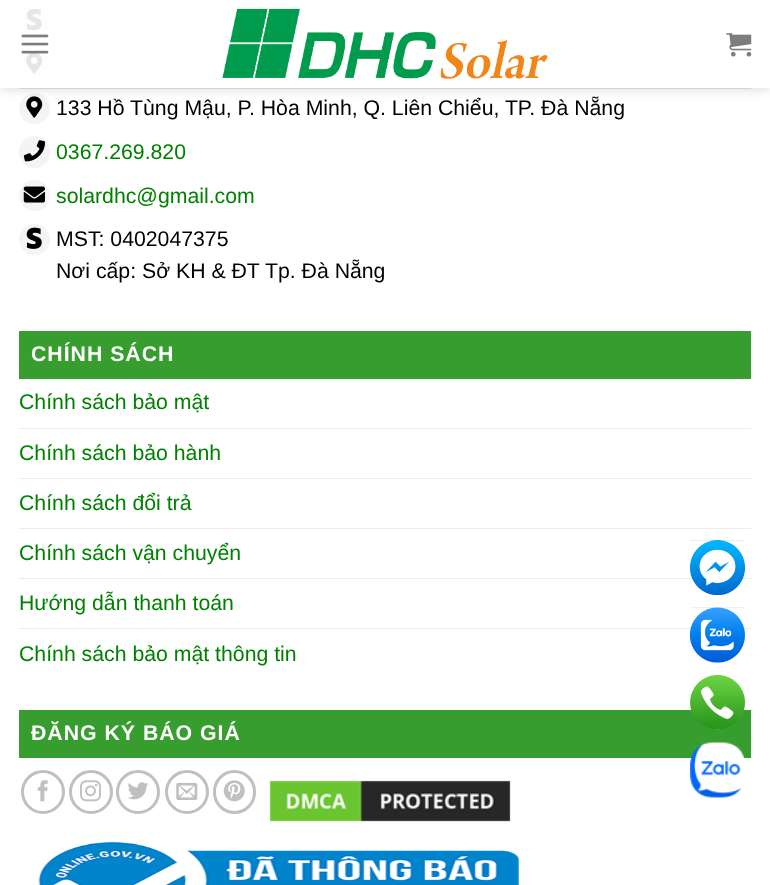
<!DOCTYPE html>
<meta charset="utf-8">
<style>body { margin: 0 } canvas { display: block }</style>
<canvas id="canvas" width="770" height="885"></canvas>
<img id="img1" src="images/4.png" hidden>
<img id="img2" src="images/5.png" hidden>
<img id="img3" src="images/6.png" hidden>
<img id="img4" src="images/1.png" hidden>
<img id="img5" src="images/2.png" hidden>
<img id="img6" src="images/3.png" hidden>
<img id="img7" src="images/7.png" hidden>
<img id="img8" src="images/8.png" hidden>
<img id="img9" src="images/9.png" hidden>
<img id="img10" src="images/10.png" hidden>
<img id="img11" src="images/11.png" hidden>
<img id="img12" src="images/12.png" hidden>
<img id="img13" src="images/13.png" hidden>
<img id="img14" src="images/14.png" hidden>
<img id="img15" src="images/15.png" hidden>
<img id="img16" src="images/16.png" hidden>
<img id="img17" src="images/17.png" hidden>
<img id="img18" src="images/18.png" hidden>
<img id="img19" src="images/19.png" hidden>
<img id="img20" src="images/20.png" hidden>
<script>
window.onload = function () {
    const canvas = document.getElementById('canvas');
    const context = canvas.getContext('2d');
    context.miterLimit = 4;
    context.fontKerning = 'normal';

    context.fillStyle = 'rgb(255, 255, 255)';
    context.fillRect(0, 0, 770, 885);
    context.fillStyle = 'rgb(244, 244, 244)';
    context.beginPath();
    context.arc(34.5, 20.5, 15.5, 0, 2 * Math.PI);
    context.fill();
    context.drawImage(document.getElementById('img1'), 26, 8, 16, 23);
    context.beginPath();
    context.arc(34.5, 64.5, 15.5, 0, 2 * Math.PI);
    context.fill();
    context.drawImage(document.getElementById('img2'), 26, 52, 17, 22);
    context.beginPath();
    context.arc(34.5, 108.5, 15.5, 0, 2 * Math.PI);
    context.fill();
    context.drawImage(document.getElementById('img3'), 26, 96, 17, 22);
    context.save();
    context.beginPath();
    context.moveTo(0, 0);
    context.lineTo(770, 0);
    context.lineTo(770, 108);
    context.lineTo(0, 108);
    context.closePath();
    context.moveTo(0, 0);
    context.lineTo(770, 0);
    context.lineTo(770, 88);
    context.lineTo(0, 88);
    context.closePath();
    context.clip('evenodd');
    context.fillStyle = 'rgba(0, 0, 0, 0.15)';
    context.filter = 'blur(6px)';
    context.beginPath();
    context.rect(1, 1, 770, 88);
    context.fill();
    context.filter = 'none';
    context.restore();
    context.fillStyle = 'rgba(255, 255, 255, 0.9)';
    context.fillRect(0, 5, 770, 83);
    context.drawImage(document.getElementById('img4'), 21, 34, 28, 20);
    context.drawImage(document.getElementById('img5'), 222, 8, 326, 71);
    context.drawImage(document.getElementById('img6'), 726, 33, 26, 24);
    context.fillStyle = 'rgb(211, 211, 211)';
    context.fillRect(19, 88, 732, 1);
    context.fillStyle = 'rgb(244, 244, 244)';
    context.beginPath();
    context.roundRect(19, 136, 31, 32, 15.5);
    context.fill();
    context.drawImage(document.getElementById('img7'), 23, 140, 23, 22);
    context.beginPath();
    context.arc(34.5, 195.5, 15.5, 0, 2 * Math.PI);
    context.fill();
    context.drawImage(document.getElementById('img8'), 23, 186, 22, 17);
    context.beginPath();
    context.arc(34.5, 239.5, 15.5, 0, 2 * Math.PI);
    context.fill();
    context.drawImage(document.getElementById('img9'), 26, 227, 16, 22);
    context.fillStyle = 'rgb(54, 157, 46)';
    context.fillRect(19, 331, 732, 48);
    context.fillStyle = 'rgb(236, 236, 236)';
    context.fillRect(19, 428, 732, 1);
    context.fillRect(19, 478, 732, 1);
    context.fillRect(19, 528, 732, 1);
    context.fillRect(19, 578, 732, 1);
    context.fillRect(19, 628, 732, 1);
    context.fillStyle = 'rgb(54, 157, 46)';
    context.fillRect(19, 710, 732, 48);
    context.beginPath();
    context.arc(43, 792, 20.5, 0, 2 * Math.PI);
    context.strokeStyle = 'rgb(192, 192, 192)';
    context.lineWidth = 3;
    context.stroke();
    context.drawImage(document.getElementById('img10'), 37, 780, 11, 22);
    context.beginPath();
    context.arc(91, 792, 20.5, 0, 2 * Math.PI);
    context.stroke();
    context.drawImage(document.getElementById('img11'), 80, 780, 21, 22);
    context.beginPath();
    context.arc(138, 792, 20.5, 0, 2 * Math.PI);
    context.stroke();
    context.drawImage(document.getElementById('img12'), 128, 782, 21, 18);
    context.beginPath();
    context.arc(187, 792, 20.5, 0, 2 * Math.PI);
    context.stroke();
    context.drawImage(document.getElementById('img13'), 176, 782, 22, 18);
    context.beginPath();
    context.roundRect(214.5, 771.5, 40, 41, 20);
    context.stroke();
    context.drawImage(document.getElementById('img14'), 223, 780, 22, 22);
    context.drawImage(document.getElementById('img15'), 269, 780, 242, 42);
    context.drawImage(document.getElementById('img16'), 38, 841, 481, 44);
    context.drawImage(document.getElementById('img17'), 690, 540, 55, 55);
    context.drawImage(document.getElementById('img18'), 690, 607, 55, 56);
    context.drawImage(document.getElementById('img19'), 690, 675, 55, 55);
    context.drawImage(document.getElementById('img20'), 690, 742, 55, 56);
    context.font = '21.25px Liberation Sans';
    context.fillStyle = 'rgb(0, 0, 0)';
    context.fillText('133 Hồ Tùng Mậu, P. Hòa Minh, Q. Liên Chiểu, TP. Đà Nẵng', 56, 115);
    context.fillStyle = 'rgb(0, 128, 0)';
    context.fillText('0367.269.820', 56, 159);
    context.fillText('solardhc@gmail.com', 56, 203);
    context.fillStyle = 'rgb(0, 0, 0)';
    context.fillText('MST: 0402047375', 56, 246);
    context.fillText('Nơi cấp: Sở KH & ĐT Tp. Đà Nẵng', 56, 278);
    context.letterSpacing = '1px';
    context.font = 'bold 21.25px Liberation Sans';
    context.fillStyle = 'rgb(255, 255, 255)';
    context.fillText('CHÍNH SÁCH', 31, 361);
    context.letterSpacing = '0px';
    context.font = '21.25px Liberation Sans';
    context.fillStyle = 'rgb(0, 128, 0)';
    context.fillText('Chính sách bảo mật', 19, 409);
    context.fillText('Chính sách bảo hành', 19, 460);
    context.fillText('Chính sách đổi trả', 19, 510);
    context.fillText('Chính sách vận chuyển', 19, 560);
    context.fillText('Hướng dẫn thanh toán', 19, 610);
    context.fillText('Chính sách bảo mật thông tin', 19, 661);
    context.letterSpacing = '1px';
    context.font = 'bold 21.25px Liberation Sans';
    context.fillStyle = 'rgb(255, 255, 255)';
    context.fillText('ĐĂNG KÝ BÁO GIÁ', 31, 740);
};
</script>
